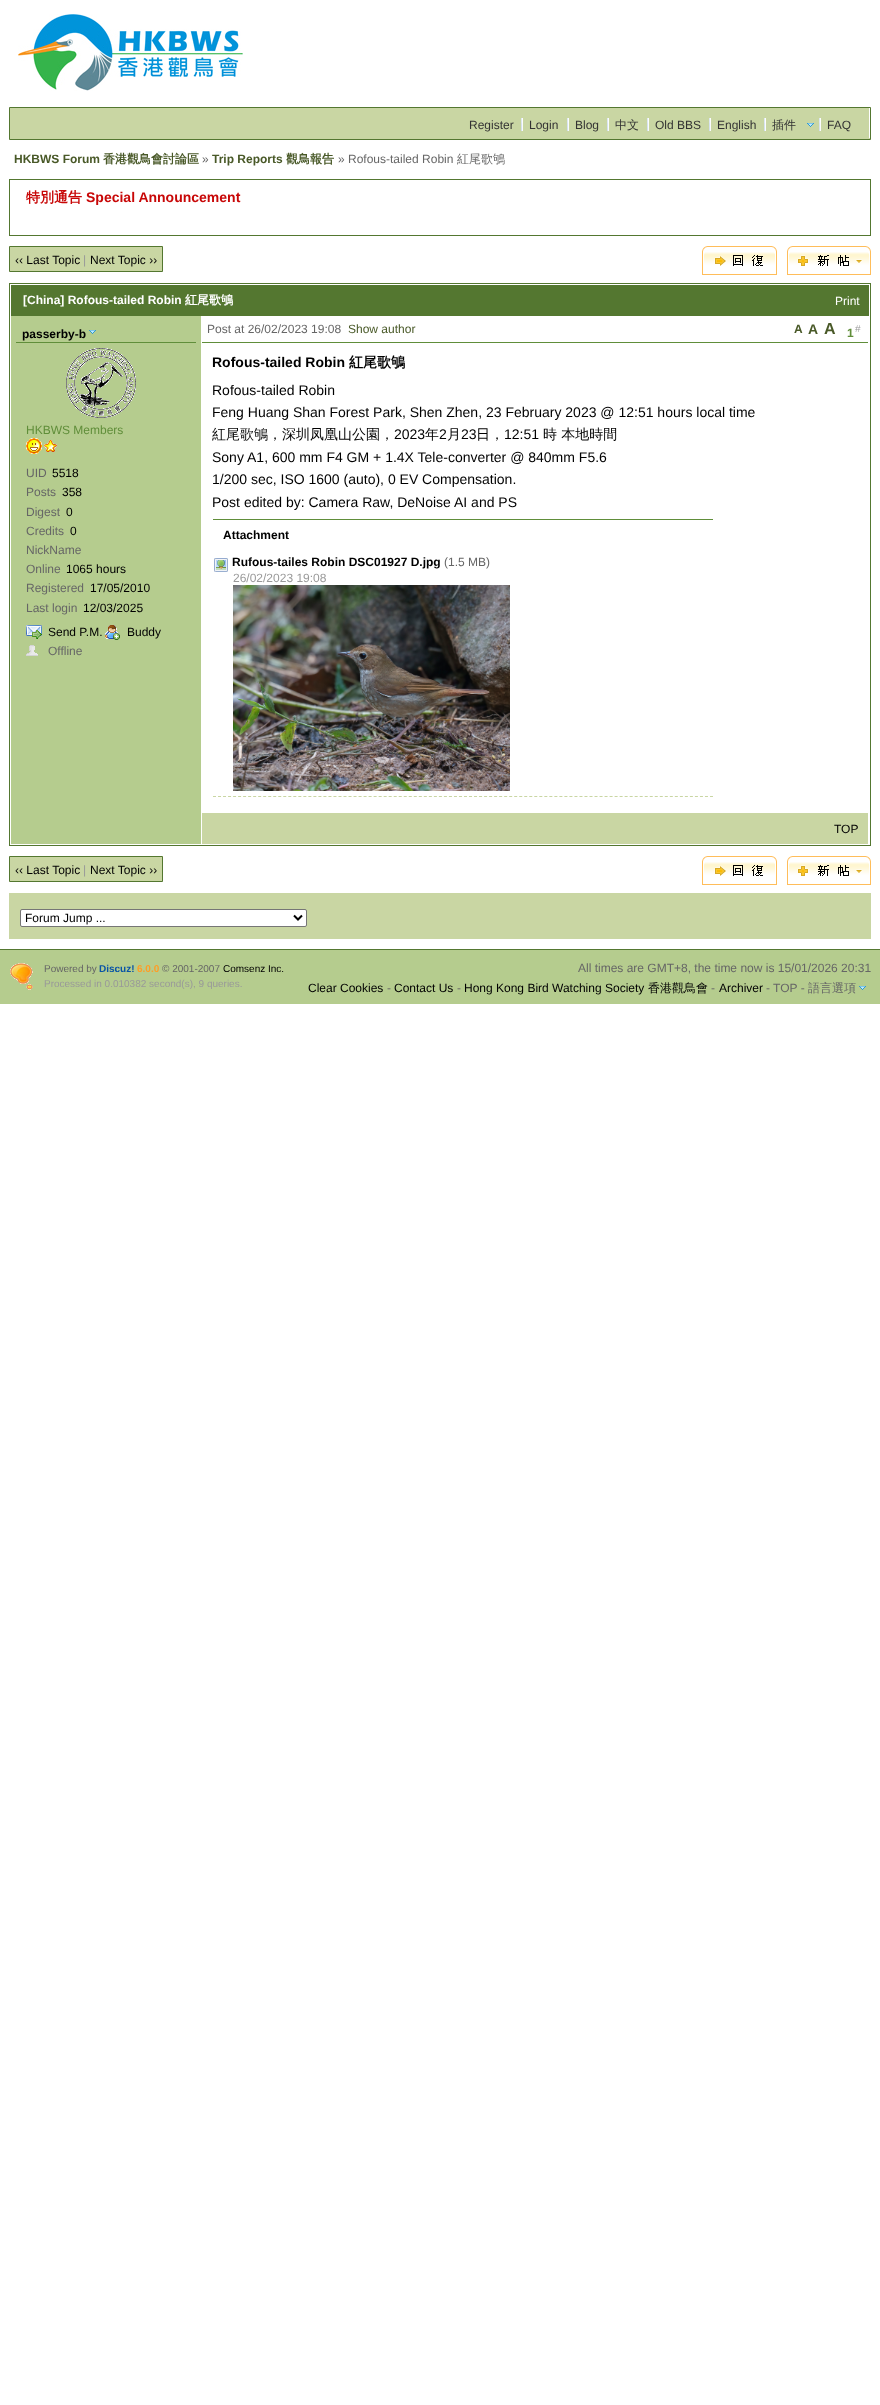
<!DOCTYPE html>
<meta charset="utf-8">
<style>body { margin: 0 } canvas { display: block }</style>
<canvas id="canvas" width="880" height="2405"></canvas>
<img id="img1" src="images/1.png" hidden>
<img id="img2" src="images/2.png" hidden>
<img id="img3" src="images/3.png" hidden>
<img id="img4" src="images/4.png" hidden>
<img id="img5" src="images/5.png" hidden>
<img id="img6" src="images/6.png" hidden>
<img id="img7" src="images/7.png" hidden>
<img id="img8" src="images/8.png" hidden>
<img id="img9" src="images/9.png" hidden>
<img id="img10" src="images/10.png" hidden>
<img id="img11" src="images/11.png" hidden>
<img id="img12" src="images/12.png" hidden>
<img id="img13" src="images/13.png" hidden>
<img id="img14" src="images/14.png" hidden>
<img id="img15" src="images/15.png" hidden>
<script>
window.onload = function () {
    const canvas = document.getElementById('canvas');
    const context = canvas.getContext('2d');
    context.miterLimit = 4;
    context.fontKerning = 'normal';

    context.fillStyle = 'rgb(255, 255, 255)';
    context.fillRect(0, 0, 880, 2405);
    context.drawImage(document.getElementById('img1'), 18, 14, 225, 77);
    context.fillStyle = 'rgb(201, 214, 163)';
    context.beginPath();
    context.rect(9.5, 107.5, 861, 32);
    context.fill();
    context.strokeStyle = 'rgb(84, 119, 48)';
    context.stroke();
    context.fillStyle = 'rgb(255, 255, 255)';
    context.fillRect(869, 108, 1, 30);
    context.drawImage(document.getElementById('img2'), 521, 118, 2, 13);
    context.drawImage(document.getElementById('img2'), 567, 118, 2, 13);
    context.drawImage(document.getElementById('img2'), 607, 118, 2, 13);
    context.drawImage(document.getElementById('img2'), 647, 118, 2, 13);
    context.drawImage(document.getElementById('img2'), 709, 118, 2, 13);
    context.drawImage(document.getElementById('img3'), 807, 123, 7, 4);
    context.drawImage(document.getElementById('img2'), 764, 118, 2, 13);
    context.drawImage(document.getElementById('img2'), 819, 118, 2, 13);
    context.strokeRect(9.5, 179.5, 861, 56);
    context.fillStyle = 'rgb(201, 214, 163)';
    context.beginPath();
    context.rect(9.5, 246.5, 153, 25);
    context.fill();
    context.stroke();
    context.drawImage(document.getElementById('img4'), 702, 246, 75, 29);
    context.drawImage(document.getElementById('img5'), 787, 246, 84, 29);
    context.strokeRect(9.5, 283.5, 861, 562);
    context.fillStyle = 'rgb(84, 119, 48)';
    context.fillRect(11, 285, 858, 31);
    context.fillStyle = 'rgb(181, 204, 142)';
    context.fillRect(11, 316, 190, 528);
    context.fillStyle = 'rgb(96, 142, 58)';
    context.fillRect(16, 342, 180, 1);
    context.drawImage(document.getElementById('img6'), 89, 330, 7, 4);
    context.drawImage(document.getElementById('img7'), 66, 348, 70, 70);
    context.drawImage(document.getElementById('img8'), 26, 438, 16, 16);
    context.drawImage(document.getElementById('img9'), 44, 440, 13, 12);
    context.drawImage(document.getElementById('img10'), 26, 625, 16, 14);
    context.drawImage(document.getElementById('img11'), 105, 625, 15, 15);
    context.drawImage(document.getElementById('img12'), 26, 645, 12, 11);
    context.fillRect(202, 342, 666, 1);
    context.fillRect(213, 519, 500, 1);
    context.beginPath();
    context.moveTo(213, 796.5);
    context.lineTo(713, 796.5);
    context.strokeStyle = 'rgb(201, 214, 163)';
    context.setLineDash([3, 2.02]);
    context.stroke();
    context.drawImage(document.getElementById('img13'), 214, 558, 14, 14);
    context.drawImage(document.getElementById('img14'), 233, 585, 277, 206);
    context.fillStyle = 'rgb(201, 214, 163)';
    context.fillRect(202, 813, 666, 31);
    context.beginPath();
    context.rect(9.5, 856.5, 153, 25);
    context.fill();
    context.strokeStyle = 'rgb(84, 119, 48)';
    context.setLineDash([]);
    context.stroke();
    context.drawImage(document.getElementById('img4'), 702, 856, 75, 29);
    context.drawImage(document.getElementById('img5'), 787, 856, 84, 29);
    context.fillRect(9, 893, 862, 46);
    context.fillStyle = 'rgb(255, 255, 255)';
    context.beginPath();
    context.roundRect(20.5, 909.5, 286, 17, 1.5);
    context.fill();
    context.strokeStyle = 'rgb(118, 118, 118)';
    context.stroke();
    context.beginPath();
    context.moveTo(294, 915.5);
    context.lineTo(298, 919.5);
    context.lineTo(302, 915.5);
    context.strokeStyle = 'rgb(0, 0, 0)';
    context.lineWidth = 2;
    context.stroke();
    context.fillStyle = 'rgb(181, 204, 142)';
    context.fillRect(0, 950, 880, 54);
    context.fillStyle = 'rgb(84, 119, 48)';
    context.fillRect(0, 949, 880, 1);
    context.drawImage(document.getElementById('img15'), 10, 963, 23, 27);
    context.drawImage(document.getElementById('img6'), 859, 986, 7, 4);
    context.font = '12px Liberation Sans';
    context.fillStyle = 'rgb(51, 51, 51)';
    context.fillText('Register', 469, 129);
    context.fillText('Login', 529, 129);
    context.fillText('Blog', 575, 129);
    context.font = '500 12px WenQuanYi Zen Hei';
    context.fillText('中文', 615, 129);
    context.font = '12px Liberation Sans';
    context.fillText('Old BBS', 655, 129);
    context.fillText('English', 717, 129);
    context.font = '500 12px WenQuanYi Zen Hei';
    context.fillText('插件', 772, 129);
    context.font = '12px Liberation Sans';
    context.fillText('FAQ', 827, 129);
    context.font = 'bold 12px Liberation Sans';
    context.fillStyle = 'rgb(73, 89, 40)';
    context.fillText('HKBWS Forum', 14, 163);
    context.font = 'bold 12px WenQuanYi Zen Hei';
    context.fillText('香港觀鳥會討論區', 103, 163);
    context.font = '12px Liberation Sans';
    context.fillStyle = 'rgb(102, 102, 102)';
    context.fillText('»', 202, 163);
    context.font = 'bold 12px Liberation Sans';
    context.fillStyle = 'rgb(73, 89, 40)';
    context.fillText('Trip Reports', 212, 163);
    context.font = 'bold 12px WenQuanYi Zen Hei';
    context.fillText('觀鳥報告', 286, 163);
    context.font = '12px Liberation Sans';
    context.fillStyle = 'rgb(102, 102, 102)';
    context.fillText('» Rofous-tailed Robin', 338, 163);
    context.font = '500 12px WenQuanYi Zen Hei';
    context.fillText('紅尾歌鴝', 457, 163);
    context.font = 'bold 14px WenQuanYi Zen Hei';
    context.fillStyle = 'rgb(200, 7, 7)';
    context.fillText('特別通告', 26, 202);
    context.font = 'bold 14px Liberation Sans';
    context.fillText('Special Announcement', 86, 202);
    context.font = '12px Liberation Sans';
    context.fillStyle = 'rgb(0, 0, 0)';
    context.fillText('‹‹ Last Topic', 15, 264);
    context.fillStyle = 'rgb(153, 153, 153)';
    context.fillText('|', 83, 264);
    context.fillStyle = 'rgb(0, 0, 0)';
    context.fillText('Next Topic ››', 90, 264);
    context.font = 'bold 12px Liberation Sans';
    context.fillStyle = 'rgb(255, 255, 255)';
    context.fillText('[China] Rofous-tailed Robin', 23, 304);
    context.font = 'bold 12px WenQuanYi Zen Hei';
    context.fillText('紅尾歌鴝', 185, 304);
    context.font = '12px Liberation Sans';
    context.fillText('Print', 835, 305);
    context.font = 'bold 12px Liberation Sans';
    context.fillStyle = 'rgb(0, 0, 0)';
    context.fillText('passerby-b', 22, 338);
    context.font = '12px Liberation Sans';
    context.fillStyle = 'rgb(96, 142, 58)';
    context.fillText('HKBWS Members', 26, 434);
    context.fillStyle = 'rgb(102, 102, 102)';
    context.fillText('UID', 26, 477);
    context.fillStyle = 'rgb(0, 0, 0)';
    context.fillText('5518', 52, 477);
    context.fillStyle = 'rgb(102, 102, 102)';
    context.fillText('Posts', 26, 496);
    context.fillStyle = 'rgb(0, 0, 0)';
    context.fillText('358', 62, 496);
    context.fillStyle = 'rgb(102, 102, 102)';
    context.fillText('Digest', 26, 516);
    context.fillStyle = 'rgb(0, 0, 0)';
    context.fillText('0', 66, 516);
    context.fillStyle = 'rgb(102, 102, 102)';
    context.fillText('Credits', 26, 535);
    context.fillStyle = 'rgb(0, 0, 0)';
    context.fillText('0', 70, 535);
    context.fillStyle = 'rgb(102, 102, 102)';
    context.fillText('NickName', 26, 554);
    context.fillText('Online', 26, 573);
    context.fillStyle = 'rgb(0, 0, 0)';
    context.fillText('1065 hours', 66, 573);
    context.fillStyle = 'rgb(102, 102, 102)';
    context.fillText('Registered', 26, 592);
    context.fillStyle = 'rgb(0, 0, 0)';
    context.fillText('17/05/2010', 90, 592);
    context.fillStyle = 'rgb(102, 102, 102)';
    context.fillText('Last login', 26, 612);
    context.fillStyle = 'rgb(0, 0, 0)';
    context.fillText('12/03/2025', 83, 612);
    context.fillText('Send P.M.', 48, 636);
    context.fillText('Buddy', 127, 636);
    context.fillStyle = 'rgb(102, 102, 102)';
    context.fillText('Offline', 48, 655);
    context.fillText('Post at 26/02/2023 19:08', 207, 333);
    context.fillStyle = 'rgb(73, 89, 40)';
    context.fillText('Show author', 348, 333);
    context.font = 'bold 12px Liberation Sans';
    context.fillText('A', 794, 333);
    context.font = 'bold 14px Liberation Sans';
    context.fillText('A', 808, 334);
    context.font = 'bold 16px Liberation Sans';
    context.fillText('A', 824, 334);
    context.font = 'bold 12px Liberation Sans';
    context.fillStyle = 'rgb(96, 142, 58)';
    context.fillText('1', 847, 337);
    context.font = '10px Liberation Sans';
    context.fillStyle = 'rgb(153, 153, 153)';
    context.fillText('#', 855, 332);
    context.font = 'bold 14px Liberation Sans';
    context.fillStyle = 'rgb(0, 0, 0)';
    context.fillText('Rofous-tailed Robin', 212, 367);
    context.font = 'bold 14px WenQuanYi Zen Hei';
    context.fillText('紅尾歌鴝', 349, 367);
    context.font = '14px Liberation Sans';
    context.fillText('Rofous-tailed Robin', 212, 395);
    context.fillText('Feng Huang Shan Forest Park, Shen Zhen, 23 February 2023 @ 12:51 hours local time', 212, 417);
    context.font = '500 14px WenQuanYi Zen Hei';
    context.fillText('紅尾歌鴝，深圳凤凰山公園，', 212, 439);
    context.font = '14px Liberation Sans';
    context.fillText('2023', 394, 439);
    context.font = '500 14px WenQuanYi Zen Hei';
    context.fillText('年', 425, 439);
    context.font = '14px Liberation Sans';
    context.fillText('2', 439, 439);
    context.font = '500 14px WenQuanYi Zen Hei';
    context.fillText('月', 447, 439);
    context.font = '14px Liberation Sans';
    context.fillText('23', 461, 439);
    context.font = '500 14px WenQuanYi Zen Hei';
    context.fillText('日，', 476, 439);
    context.font = '14px Liberation Sans';
    context.fillText('12:51', 504, 439);
    context.font = '500 14px WenQuanYi Zen Hei';
    context.fillText('時 本地時間', 543, 439);
    context.font = '14px Liberation Sans';
    context.fillText('Sony A1, 600 mm F4 GM + 1.4X Tele-converter @ 840mm F5.6', 212, 462);
    context.fillText('1/200 sec, ISO 1600 (auto), 0 EV Compensation.', 212, 484);
    context.fillText('Post edited by: Camera Raw, DeNoise AI and PS', 212, 507);
    context.font = 'bold 12px Liberation Sans';
    context.fillText('Attachment', 223, 539);
    context.fillText('Rufous-tailes Robin DSC01927 D.jpg', 232, 566);
    context.font = '12px Liberation Sans';
    context.fillStyle = 'rgb(102, 102, 102)';
    context.fillText('(1.5 MB)', 444, 566);
    context.fillStyle = 'rgb(153, 153, 153)';
    context.fillText('26/02/2023 19:08', 233, 582);
    context.fillStyle = 'rgb(0, 0, 0)';
    context.fillText('TOP', 834, 833);
    context.fillText('‹‹ Last Topic', 15, 874);
    context.fillStyle = 'rgb(153, 153, 153)';
    context.fillText('|', 83, 874);
    context.fillStyle = 'rgb(0, 0, 0)';
    context.fillText('Next Topic ››', 90, 874);
    context.fillText('Forum Jump ...', 25, 922);
    context.font = '10px Liberation Sans';
    context.fillStyle = 'rgb(102, 102, 102)';
    context.fillText('Powered by', 44, 972);
    context.font = 'bold 10px Liberation Sans';
    context.fillStyle = 'rgb(9, 84, 166)';
    context.fillText('Discuz!', 99, 972);
    context.fillStyle = 'rgb(255, 157, 37)';
    context.fillText('6.0.0', 137, 972);
    context.font = '10px Liberation Sans';
    context.fillStyle = 'rgb(102, 102, 102)';
    context.fillText('© 2001-2007', 162, 972);
    context.fillStyle = 'rgb(0, 0, 0)';
    context.fillText('Comsenz Inc.', 223, 972);
    context.font = '12px Liberation Sans';
    context.fillStyle = 'rgb(102, 102, 102)';
    context.fillText('All times are GMT+8, the time now is 15/01/2026 20:31', 578, 972);
    context.fillStyle = 'rgb(0, 0, 0)';
    context.fillText('Clear Cookies', 308, 992);
    context.fillStyle = 'rgb(102, 102, 102)';
    context.fillText('-', 387, 992);
    context.fillStyle = 'rgb(0, 0, 0)';
    context.fillText('Contact Us', 394, 992);
    context.fillStyle = 'rgb(102, 102, 102)';
    context.fillText('-', 457, 992);
    context.fillStyle = 'rgb(0, 0, 0)';
    context.fillText('Hong Kong Bird Watching Society', 464, 992);
    context.font = '500 12px WenQuanYi Zen Hei';
    context.fillText('香港觀鳥會', 648, 992);
    context.font = '12px Liberation Sans';
    context.fillStyle = 'rgb(102, 102, 102)';
    context.fillText('-', 711, 992);
    context.fillStyle = 'rgb(0, 0, 0)';
    context.fillText('Archiver', 719, 992);
    context.fillStyle = 'rgb(102, 102, 102)';
    context.fillText('- TOP -', 766, 992);
    context.font = '500 12px WenQuanYi Zen Hei';
    context.fillText('語言選項', 808, 992);
    context.font = '10px Liberation Sans';
    context.fillStyle = 'rgb(153, 153, 153)';
    context.fillText('Processed in 0.010382 second(s), 9 queries.', 44, 987);
};
</script>
